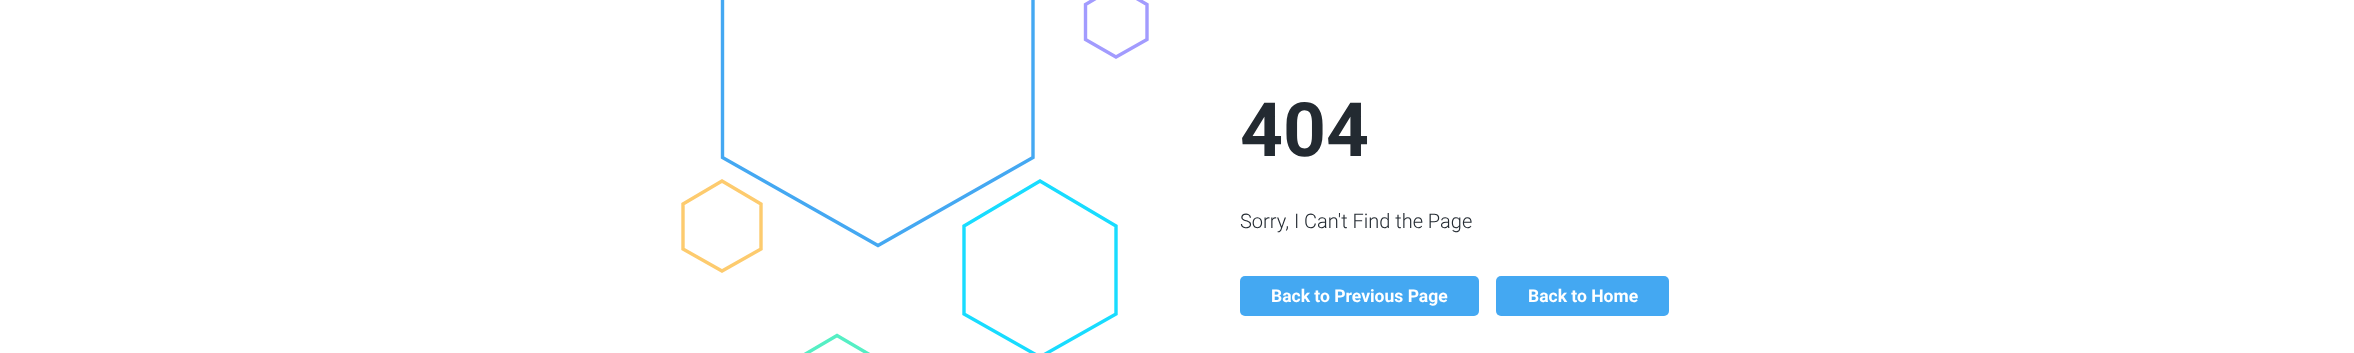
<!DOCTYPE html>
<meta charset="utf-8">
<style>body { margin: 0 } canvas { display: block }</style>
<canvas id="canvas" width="2354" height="353"></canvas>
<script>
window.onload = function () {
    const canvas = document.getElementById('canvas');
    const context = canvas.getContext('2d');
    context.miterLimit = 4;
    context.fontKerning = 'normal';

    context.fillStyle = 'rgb(255, 255, 255)';
    context.fillRect(0, 0, 2354, 353);
    context.beginPath();
    context.moveTo(878, -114);
    context.lineTo(1033, -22.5);
    context.lineTo(1033, 157.5);
    context.lineTo(878, 245.5);
    context.lineTo(722.5, 157.5);
    context.lineTo(722.5, -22.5);
    context.closePath();
    context.strokeStyle = 'rgb(68, 168, 242)';
    context.lineWidth = 3.4;
    context.stroke();
    context.beginPath();
    context.moveTo(722, 181);
    context.lineTo(761, 204);
    context.lineTo(761, 249);
    context.lineTo(722, 271);
    context.lineTo(683, 249);
    context.lineTo(683, 204);
    context.closePath();
    context.strokeStyle = 'rgb(253, 203, 110)';
    context.stroke();
    context.beginPath();
    context.moveTo(1116, -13.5);
    context.lineTo(1147, 4.5);
    context.lineTo(1147, 39.5);
    context.lineTo(1116, 57);
    context.lineTo(1085.5, 39.5);
    context.lineTo(1085.5, 4.5);
    context.closePath();
    context.strokeStyle = 'rgb(162, 155, 254)';
    context.stroke();
    context.beginPath();
    context.moveTo(1040, 181);
    context.lineTo(1116, 226);
    context.lineTo(1116, 314);
    context.lineTo(1040, 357);
    context.lineTo(964, 314);
    context.lineTo(964, 226);
    context.closePath();
    context.strokeStyle = 'rgb(24, 220, 255)';
    context.stroke();
    context.beginPath();
    context.moveTo(837, 335.5);
    context.lineTo(895, 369.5);
    context.lineTo(895, 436.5);
    context.lineTo(837, 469.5);
    context.lineTo(779, 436.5);
    context.lineTo(779, 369.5);
    context.closePath();
    context.strokeStyle = 'rgb(85, 239, 196)';
    context.stroke();
    context.fillStyle = 'rgb(68, 168, 242)';
    context.beginPath();
    context.roundRect(1240, 276, 239, 40, 5);
    context.fill();
    context.beginPath();
    context.roundRect(1496, 276, 173, 40, 5);
    context.fill();
    context.font = 'bold 75px Roboto';
    context.fillStyle = 'rgb(35, 42, 49)';
    context.fillText('404', 1240, 156);
    context.font = '300 20px Roboto';
    context.fillText('Sorry, I Can\'t Find the Page', 1240, 228);
    context.font = 'bold 17.5px Roboto';
    context.fillStyle = 'rgb(255, 255, 255)';
    context.fillText('Back to Previous Page', 1271, 302);
    context.fillText('Back to Home', 1528, 302);
};
</script>
